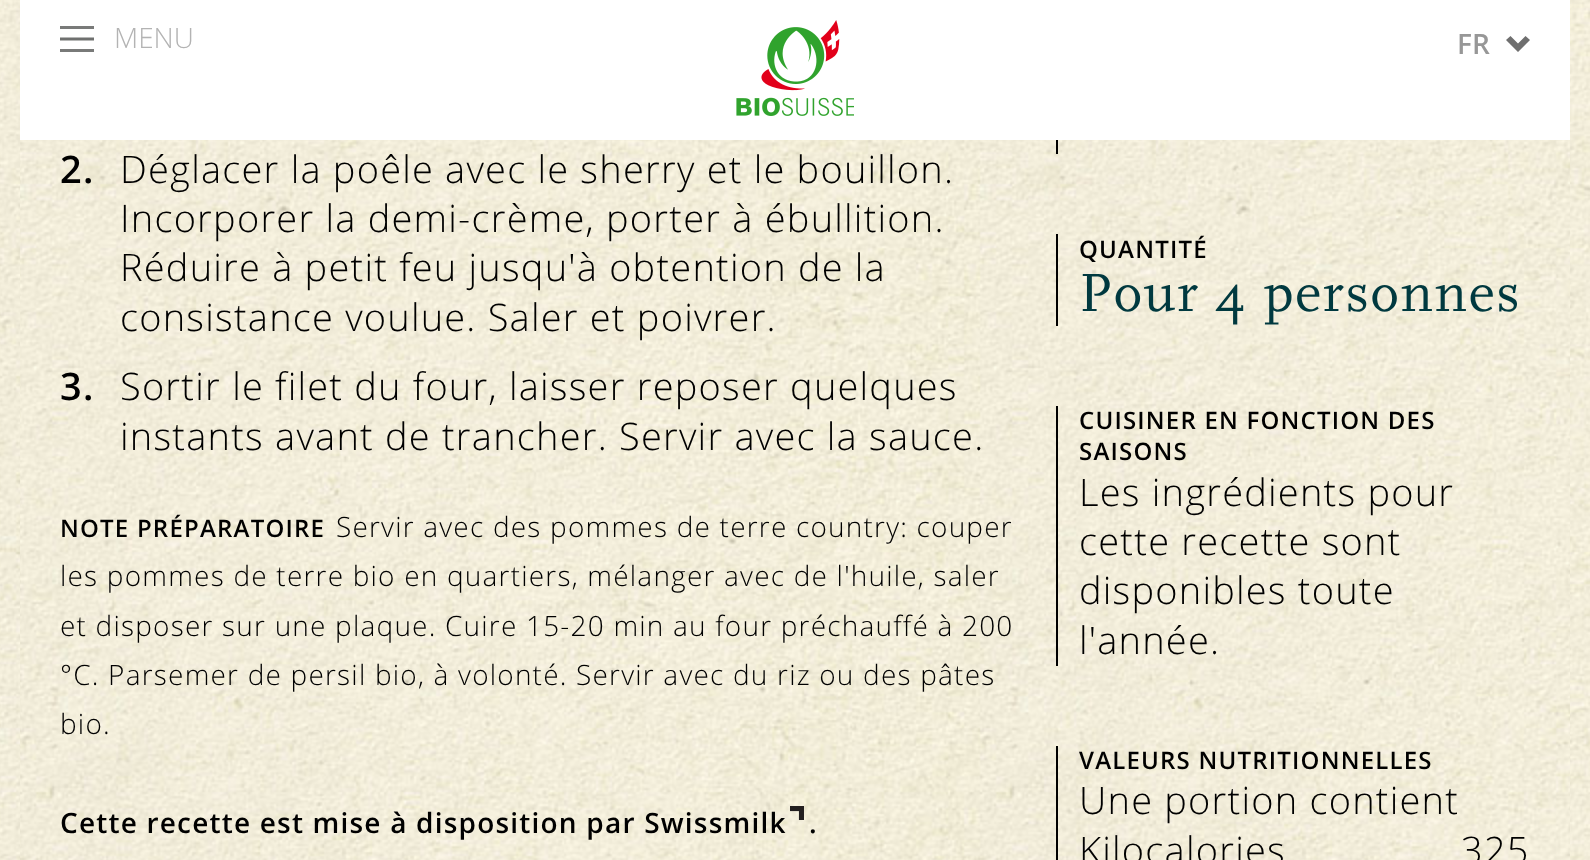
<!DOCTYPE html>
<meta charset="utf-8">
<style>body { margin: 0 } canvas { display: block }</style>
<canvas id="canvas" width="1590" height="860"></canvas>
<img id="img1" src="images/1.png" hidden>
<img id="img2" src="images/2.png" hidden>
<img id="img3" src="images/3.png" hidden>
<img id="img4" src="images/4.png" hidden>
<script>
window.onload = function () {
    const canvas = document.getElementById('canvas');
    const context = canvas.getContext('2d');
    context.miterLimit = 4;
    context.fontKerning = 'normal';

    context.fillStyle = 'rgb(255, 255, 255)';
    context.fillRect(0, 0, 1590, 860);
    context.drawImage(document.getElementById('img1'), 0, 0, 1590, 860);
    context.fillRect(20, 0, 1550, 140);
    context.drawImage(document.getElementById('img2'), 736, 20, 118, 96);
    context.fillStyle = 'rgb(121, 122, 121)';
    context.fillRect(60, 26, 34, 3);
    context.beginPath();
    context.moveTo(60, 39);
    context.lineTo(94, 39);
    context.strokeStyle = 'rgb(111, 112, 111)';
    context.lineWidth = 2.8;
    context.stroke();
    context.fillRect(60, 49, 34, 3);
    context.fillStyle = 'rgb(111, 111, 111)';
    context.beginPath();
    context.moveTo(1525.5, 36);
    context.lineTo(1518, 43.5);
    context.lineTo(1510.5, 36);
    context.lineTo(1506, 40);
    context.lineTo(1518, 52);
    context.lineTo(1530, 40);
    context.closePath();
    context.fill();
    context.drawImage(document.getElementById('img3'), 20, 140, 1550, 720);
    context.drawImage(document.getElementById('img4'), 790, 806, 14, 14);
    context.fillStyle = 'rgb(0, 0, 0)';
    context.fillRect(1056, 140, 2, 14);
    context.fillRect(1056, 234, 2, 92);
    context.fillRect(1056, 406, 2, 260);
    context.fillRect(1056, 746, 2, 114);
    context.font = '300 28px Open Sans';
    context.fillStyle = 'rgb(179, 179, 179)';
    context.fillText('MENU', 114, 48);
    context.font = '600 28px Open Sans';
    context.fillStyle = 'rgb(151, 151, 151)';
    context.fillText('FR', 1457, 54);
    context.letterSpacing = '1.2px';
    context.font = '600 38px Open Sans';
    context.fillStyle = 'rgb(0, 0, 0)';
    context.fillText('2.', 60, 183);
    context.font = '300 38px Open Sans';
    context.fillText('Déglacer la poêle avec le sherry et le bouillon.', 120, 183);
    context.fillText('Incorporer la demi-crème, porter à ébullition.', 120, 232);
    context.fillText('Réduire à petit feu jusqu\'à obtention de la', 120, 281);
    context.fillText('consistance voulue. Saler et poivrer.', 120, 331);
    context.font = '600 38px Open Sans';
    context.fillText('3.', 60, 400);
    context.font = '300 38px Open Sans';
    context.fillText('Sortir le filet du four, laisser reposer quelques', 120, 400);
    context.fillText('instants avant de trancher. Servir avec la sauce.', 120, 450);
    context.font = '600 24px Open Sans';
    context.fillText('NOTE PRÉPARATOIRE', 60, 537);
    context.font = '300 28px Open Sans';
    context.fillText('Servir avec des pommes de terre country: couper', 336, 537);
    context.fillText('les pommes de terre bio en quartiers, mélanger avec de l\'huile, saler', 60, 586);
    context.fillText('et disposer sur une plaque. Cuire 15-20 min au four préchauffé à 200', 60, 636);
    context.fillText('°C. Parsemer de persil bio, à volonté. Servir avec du riz ou des pâtes', 60, 685);
    context.fillText('bio.', 60, 734);
    context.font = '600 28px Open Sans';
    context.fillText('Cette recette est mise à disposition par Swissmilk', 60, 833);
    context.fillText('.', 809, 833);
    context.font = '600 24px Open Sans';
    context.fillText('QUANTITÉ', 1079, 258);
    context.letterSpacing = '1.6px';
    context.font = '56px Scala';
    context.fillStyle = 'rgb(0, 57, 63)';
    context.fillText('Pour 4 personnes', 1079, 311);
    context.letterSpacing = '1.2px';
    context.font = '600 24px Open Sans';
    context.fillStyle = 'rgb(0, 0, 0)';
    context.fillText('CUISINER EN FONCTION DES', 1079, 429);
    context.fillText('SAISONS', 1079, 460);
    context.font = '300 38px Open Sans';
    context.fillText('Les ingrédients pour', 1079, 506);
    context.fillText('cette recette sont', 1079, 555);
    context.fillText('disponibles toute', 1079, 604);
    context.fillText('l\'année.', 1079, 654);
    context.font = '600 24px Open Sans';
    context.fillText('VALEURS NUTRITIONNELLES', 1079, 769);
    context.font = '300 38px Open Sans';
    context.fillText('Une portion contient', 1079, 814);
    context.fillText('Kilocalories', 1079, 864);
    context.fillText('325', 1461, 864);
};
</script>
